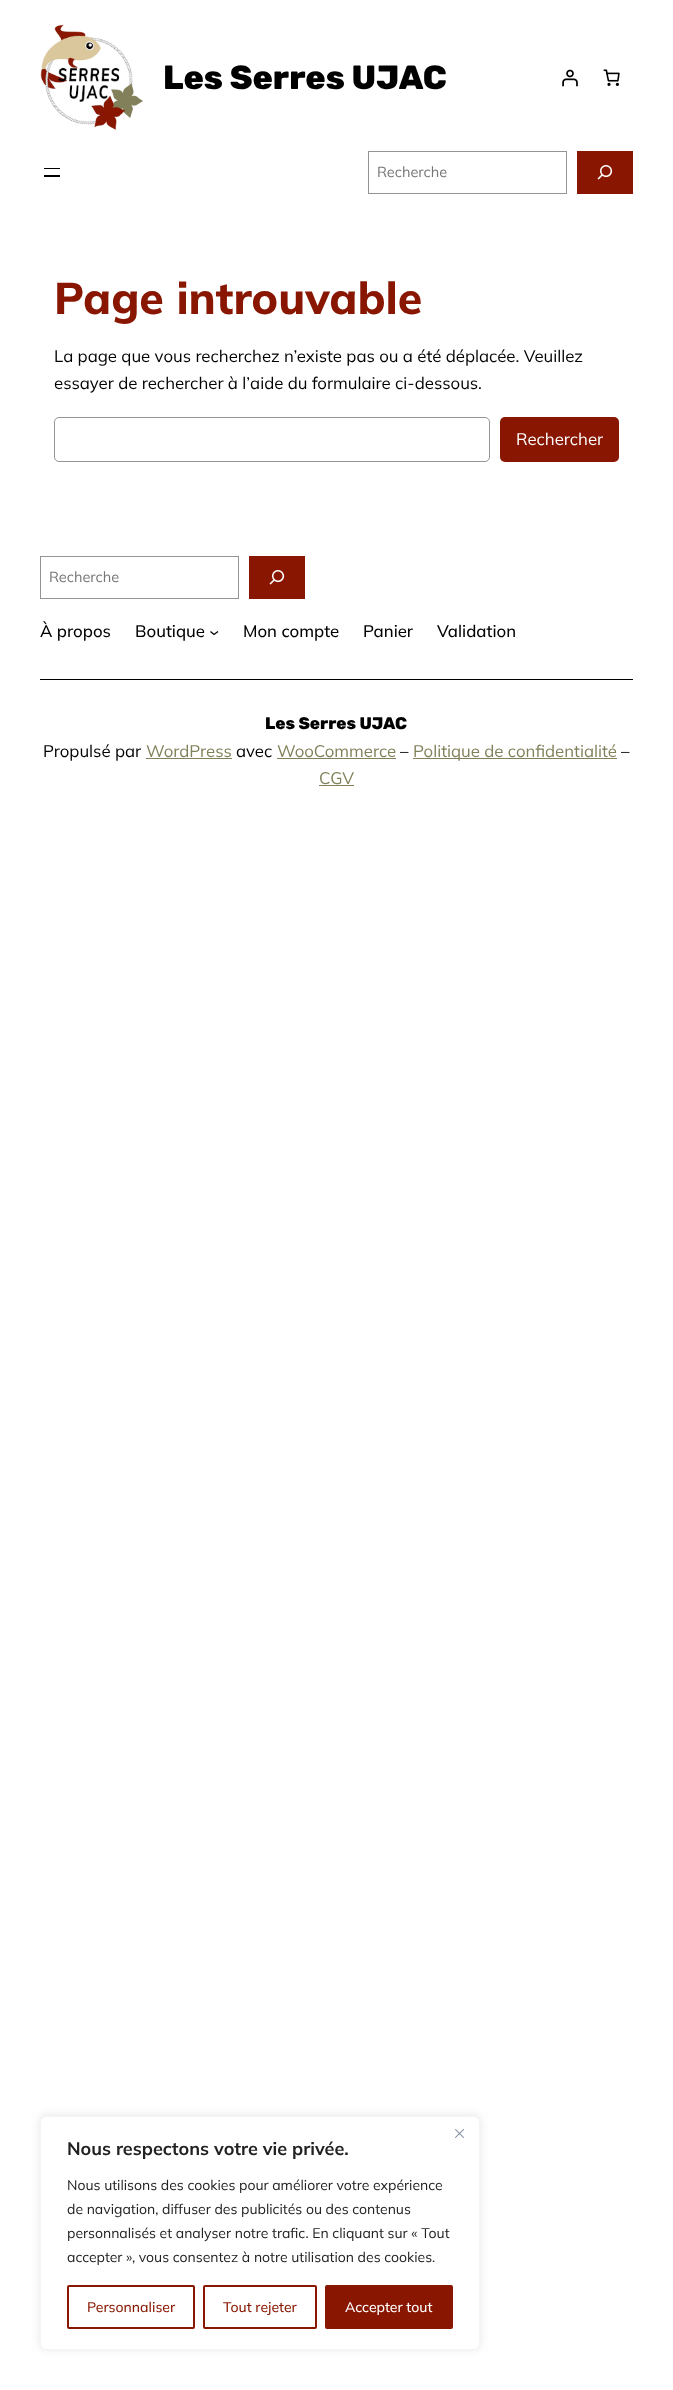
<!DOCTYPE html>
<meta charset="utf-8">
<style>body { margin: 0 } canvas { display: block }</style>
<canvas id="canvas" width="673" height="2390"></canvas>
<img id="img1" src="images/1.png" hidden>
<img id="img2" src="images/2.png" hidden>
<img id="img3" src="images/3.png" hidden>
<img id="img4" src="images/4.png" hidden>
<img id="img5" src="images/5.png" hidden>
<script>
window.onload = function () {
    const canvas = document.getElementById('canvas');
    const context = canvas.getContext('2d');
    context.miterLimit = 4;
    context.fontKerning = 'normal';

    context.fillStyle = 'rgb(255, 255, 255)';
    context.fillRect(0, 0, 673, 2390);
    context.drawImage(document.getElementById('img1'), 40, 24, 103, 106);
    context.drawImage(document.getElementById('img2'), 562, 69, 16, 18);
    context.drawImage(document.getElementById('img3'), 603, 69, 17, 17);
    context.fillStyle = 'rgb(0, 0, 0)';
    context.fillRect(44, 168, 16, 1);
    context.fillRect(44, 175, 16, 2);
    context.strokeStyle = 'rgb(148, 148, 148)';
    context.strokeRect(368.5, 151.5, 198, 42);
    context.fillStyle = 'rgb(136, 22, 1)';
    context.fillRect(577, 151, 56, 43);
    context.drawImage(document.getElementById('img4'), 597, 165, 16, 15);
    context.beginPath();
    context.roundRect(54.5, 417.5, 435, 44, 4.5);
    context.stroke();
    context.beginPath();
    context.roundRect(500, 417, 119, 45, 5);
    context.fill();
    context.strokeRect(40.5, 556.5, 198, 42);
    context.fillRect(249, 556, 56, 43);
    context.drawImage(document.getElementById('img4'), 269, 570, 16, 15);
    context.beginPath();
    context.moveTo(210.5, 631.5);
    context.lineTo(214, 634.5);
    context.lineTo(218, 631.5);
    context.strokeStyle = 'rgb(0, 0, 0)';
    context.lineWidth = 1.3;
    context.stroke();
    context.fillStyle = 'rgb(0, 0, 0)';
    context.fillRect(40, 679, 593, 1);
    context.fillStyle = 'rgb(129, 128, 90)';
    context.fillRect(146, 758, 86, 1);
    context.fillRect(277, 758, 119, 1);
    context.fillRect(413, 758, 204, 1);
    context.fillRect(319, 785, 35, 1);
    context.fillStyle = 'rgba(172, 171, 171, 0.3)';
    context.filter = 'blur(5px)';
    context.beginPath();
    context.roundRect(40, 2115, 440, 234, 6);
    context.fill();
    context.filter = 'none';
    context.fillStyle = 'rgb(255, 255, 255)';
    context.beginPath();
    context.roundRect(40.5, 2116.5, 439, 233, 5.5);
    context.fill();
    context.strokeStyle = 'rgb(244, 244, 244)';
    context.lineWidth = 1;
    context.stroke();
    context.drawImage(document.getElementById('img5'), 455, 2129, 9, 9);
    context.beginPath();
    context.roundRect(68, 2286, 126, 42, 1);
    context.strokeStyle = 'rgb(136, 22, 1)';
    context.lineWidth = 2;
    context.stroke();
    context.beginPath();
    context.roundRect(204, 2286, 112, 42, 1);
    context.stroke();
    context.fillStyle = 'rgb(136, 22, 1)';
    context.beginPath();
    context.roundRect(326, 2286, 126, 42, 1);
    context.fill();
    context.stroke();
    context.font = '800 33.5px Rubik';
    context.fillStyle = 'rgb(0, 0, 0)';
    context.fillText('Les Serres UJAC', 163, 89);
    context.font = '14.5px Mulish';
    context.fillStyle = 'rgb(117, 117, 117)';
    context.fillText('Recherche', 377, 177);
    context.font = '800 44.5px Mulish';
    context.fillStyle = 'rgb(136, 22, 1)';
    context.fillText('Page introuvable', 54, 314);
    context.font = '16.8px Mulish';
    context.fillStyle = 'rgb(0, 0, 0)';
    context.fillText('La page que vous recherchez n’existe pas ou a été déplacée. Veuillez', 54, 362);
    context.fillText('essayer de rechercher à l’aide du formulaire ci-dessous.', 54, 389);
    context.fillStyle = 'rgb(255, 255, 255)';
    context.fillText('Rechercher', 516, 445);
    context.font = '14.5px Mulish';
    context.fillStyle = 'rgb(117, 117, 117)';
    context.fillText('Recherche', 49, 582);
    context.font = '500 16.8px Mulish';
    context.fillStyle = 'rgb(0, 0, 0)';
    context.fillText('À propos', 40, 637);
    context.fillText('Boutique', 135, 637);
    context.fillText('Mon compte', 243, 637);
    context.fillText('Panier', 363, 637);
    context.fillText('Validation', 437, 637);
    context.font = '800 16.8px Rubik';
    context.fillText('Les Serres UJAC', 265, 729);
    context.font = '16.8px Mulish';
    context.fillText('Propulsé par', 43, 757);
    context.fillStyle = 'rgb(129, 128, 90)';
    context.fillText('WordPress', 146, 757);
    context.fillStyle = 'rgb(0, 0, 0)';
    context.fillText('avec', 236, 757);
    context.fillStyle = 'rgb(129, 128, 90)';
    context.fillText('WooCommerce', 277, 757);
    context.fillStyle = 'rgb(0, 0, 0)';
    context.fillText('–', 400, 757);
    context.fillStyle = 'rgb(129, 128, 90)';
    context.fillText('Politique de confidentialité', 413, 757);
    context.fillStyle = 'rgb(0, 0, 0)';
    context.fillText('–', 621, 757);
    context.fillStyle = 'rgb(129, 128, 90)';
    context.fillText('CGV', 319, 784);
    context.font = 'bold 18px Mulish';
    context.fillStyle = 'rgb(33, 33, 33)';
    context.fillText('Nous respectons votre vie privée.', 67, 2155);
    context.font = '14px Mulish';
    context.fillText('Nous utilisons des cookies pour améliorer votre expérience', 67, 2190);
    context.fillText('de navigation, diffuser des publicités ou des contenus', 67, 2214);
    context.fillText('personnalisés et analyser notre trafic. En cliquant sur « Tout', 67, 2238);
    context.fillText('accepter », vous consentez à notre utilisation des cookies.', 67, 2262);
    context.font = '500 14px Mulish';
    context.fillStyle = 'rgb(136, 22, 1)';
    context.fillText('Personnaliser', 87, 2312);
    context.fillText('Tout rejeter', 223, 2312);
    context.fillStyle = 'rgb(255, 255, 255)';
    context.fillText('Accepter tout', 345, 2312);
};
</script>
